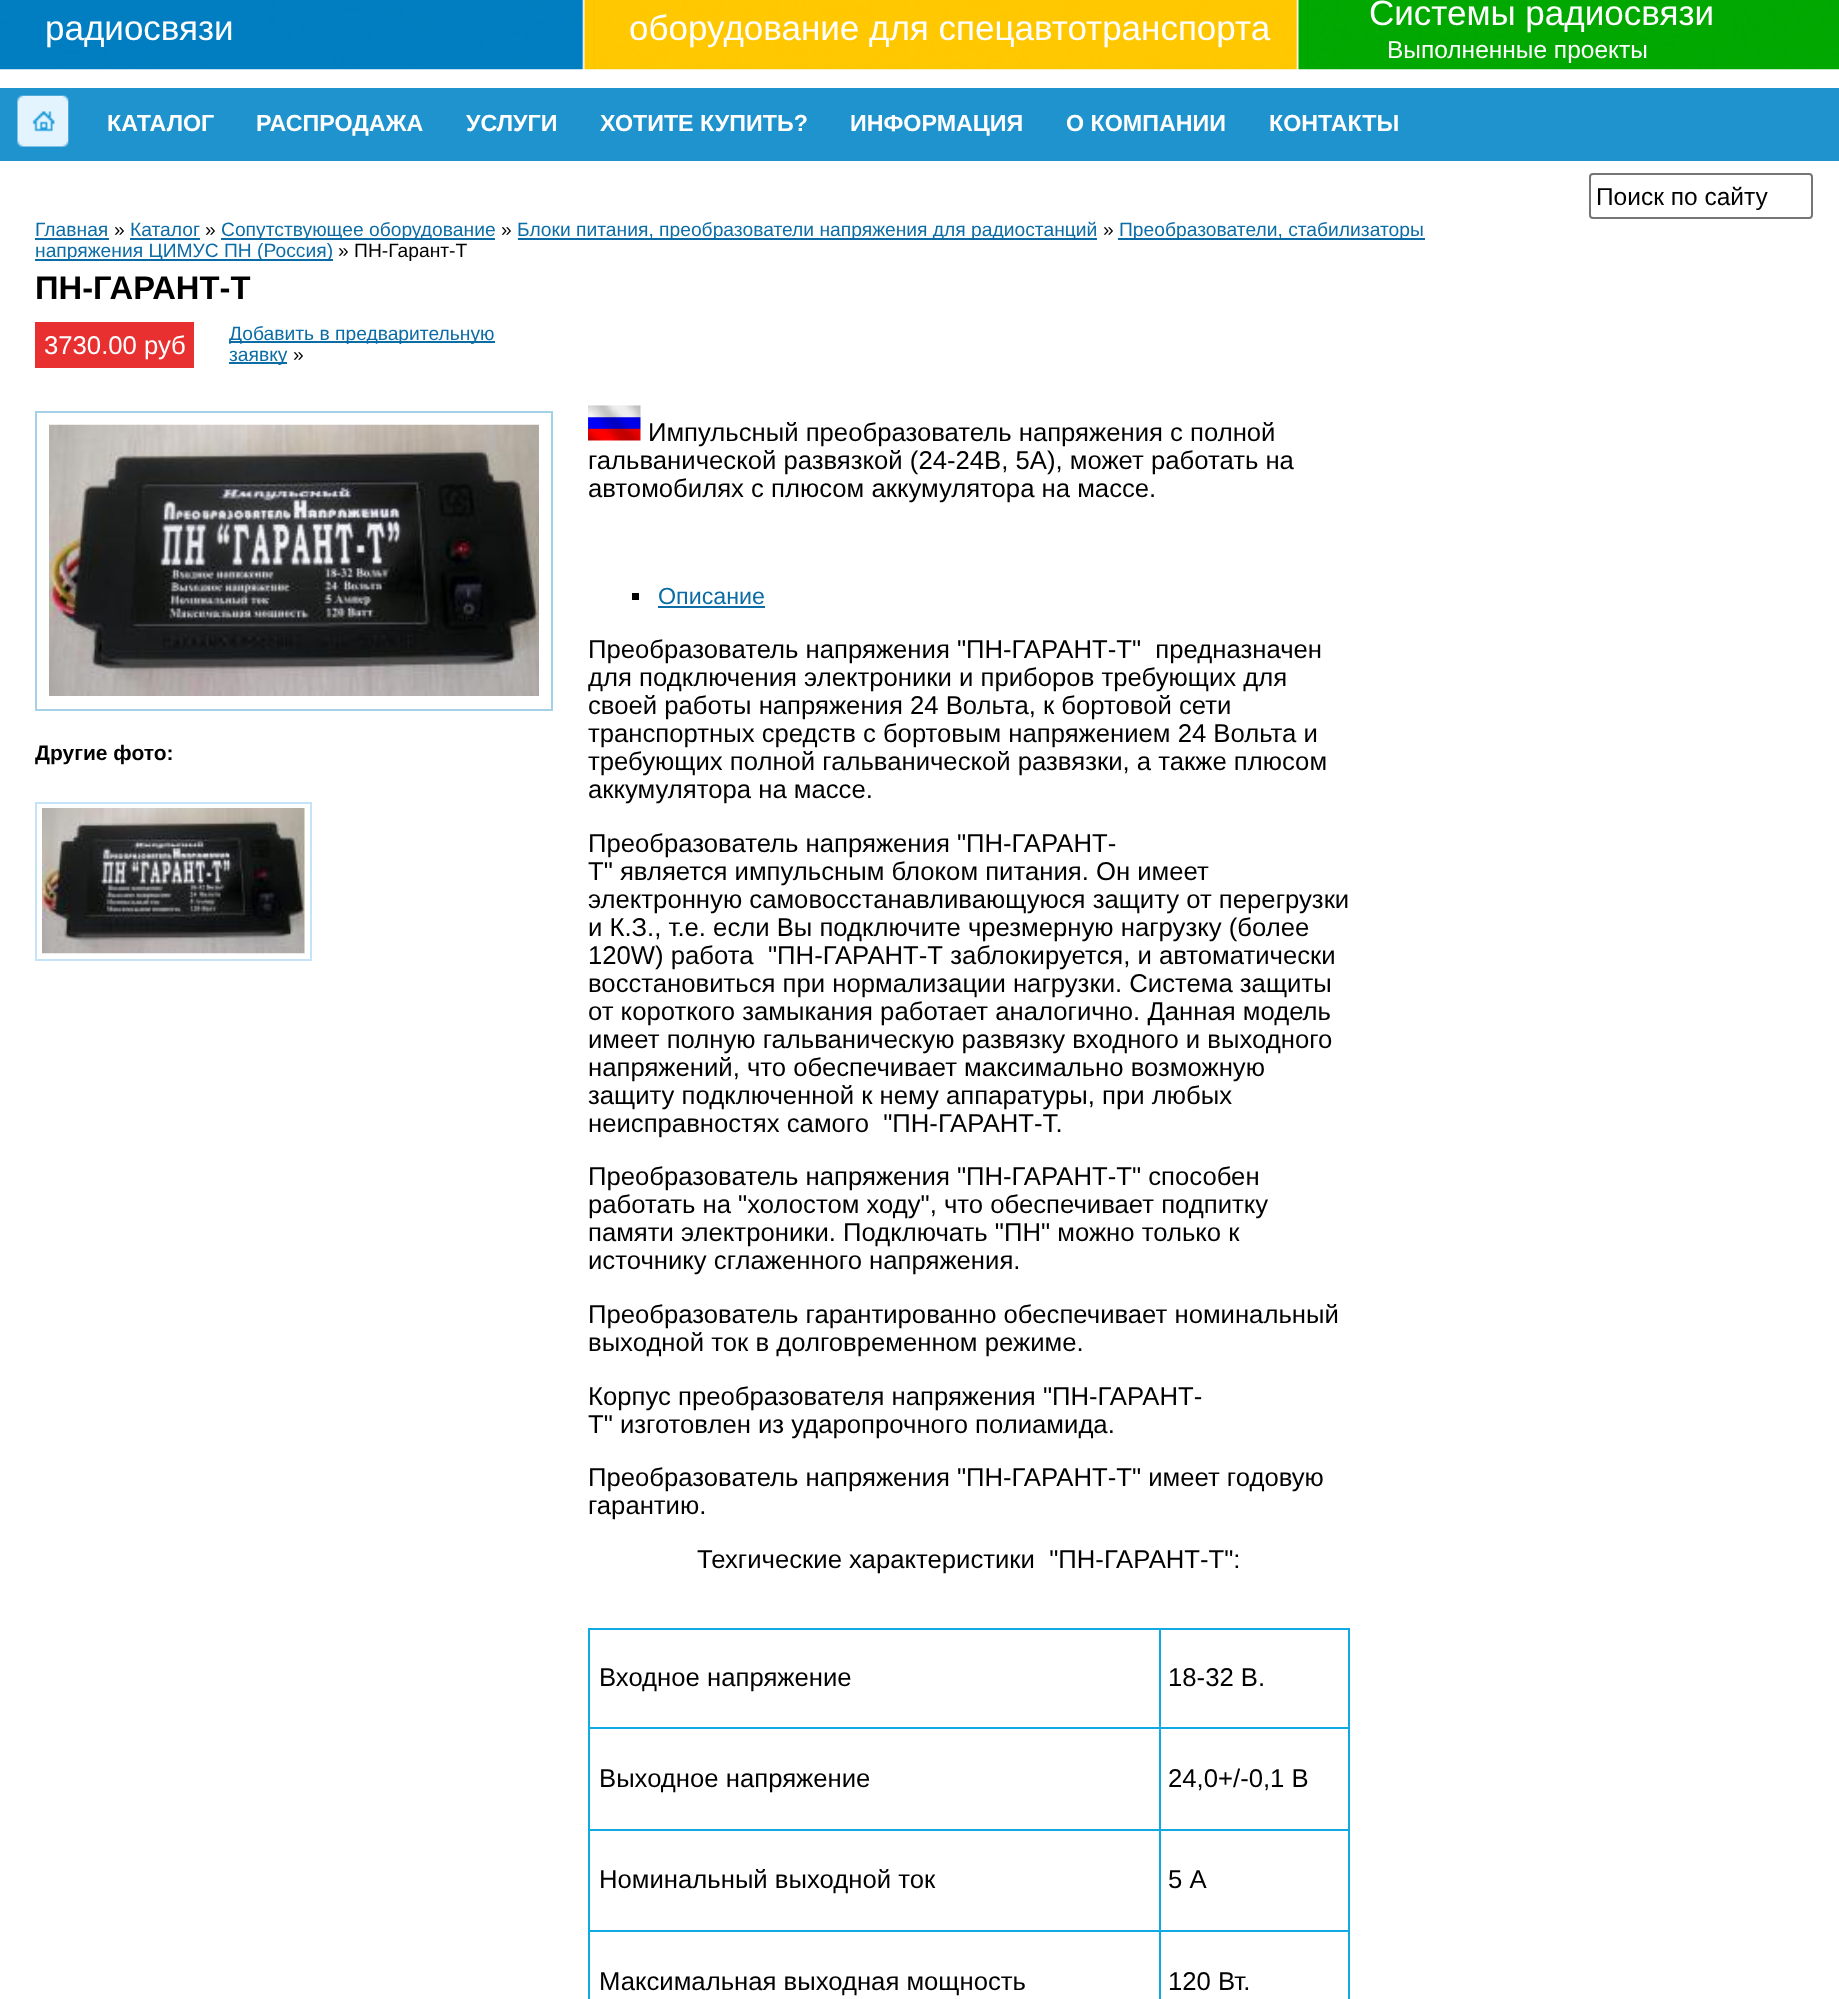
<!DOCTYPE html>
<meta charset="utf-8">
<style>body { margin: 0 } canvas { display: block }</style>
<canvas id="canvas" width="1839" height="1999"></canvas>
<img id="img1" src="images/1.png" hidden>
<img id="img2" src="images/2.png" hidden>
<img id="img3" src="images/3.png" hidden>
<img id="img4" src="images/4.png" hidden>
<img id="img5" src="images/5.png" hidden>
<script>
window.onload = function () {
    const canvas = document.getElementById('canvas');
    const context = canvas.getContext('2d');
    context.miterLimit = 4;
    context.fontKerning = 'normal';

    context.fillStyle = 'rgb(255, 255, 255)';
    context.fillRect(0, 0, 1839, 1999);
    context.drawImage(document.getElementById('img1'), 0, 0, 1839, 70);
    context.fillStyle = 'rgb(31, 147, 205)';
    context.fillRect(0, 88, 1839, 73);
    context.drawImage(document.getElementById('img2'), 17, 95, 52, 52);
    context.beginPath();
    context.roundRect(1590, 174, 222, 44, 3);
    context.strokeStyle = 'rgb(118, 118, 118)';
    context.lineWidth = 2;
    context.stroke();
    context.fillStyle = 'rgb(12, 108, 165)';
    context.fillRect(35, 238, 74, 2);
    context.fillRect(130, 238, 70, 2);
    context.fillRect(221, 238, 274, 2);
    context.fillRect(518, 238, 579, 2);
    context.fillRect(1118, 238, 307, 2);
    context.fillRect(35, 259, 298, 2);
    context.fillStyle = 'rgb(233, 48, 48)';
    context.fillRect(35, 322, 159, 46);
    context.fillStyle = 'rgb(12, 108, 165)';
    context.fillRect(229, 341, 266, 2);
    context.fillRect(229, 362, 58, 2);
    context.strokeStyle = 'rgb(163, 209, 232)';
    context.strokeRect(36, 412, 516, 298);
    context.drawImage(document.getElementById('img3'), 49, 424, 490, 272);
    context.strokeStyle = 'rgb(196, 227, 248)';
    context.strokeRect(36, 803, 275, 157);
    context.drawImage(document.getElementById('img4'), 42, 808, 263, 146);
    context.drawImage(document.getElementById('img5'), 588, 405, 53, 36);
    context.fillStyle = 'rgb(0, 0, 0)';
    context.fillRect(632, 593, 7, 7);
    context.fillStyle = 'rgb(12, 108, 165)';
    context.fillRect(658, 606, 107, 2);
    context.fillStyle = 'rgb(17, 169, 225)';
    context.fillRect(1159, 1628, 190, 2);
    context.fillRect(1159, 1727, 190, 2);
    context.fillRect(1159, 1829, 190, 2);
    context.fillRect(1159, 1930, 190, 2);
    context.fillRect(1159, 1930, 2, 69);
    context.fillRect(588, 1930, 572, 2);
    context.fillRect(1159, 1829, 2, 103);
    context.fillRect(588, 1829, 572, 2);
    context.fillRect(1159, 1727, 2, 104);
    context.fillRect(588, 1727, 572, 2);
    context.fillRect(1159, 1628, 2, 101);
    context.fillRect(588, 1628, 572, 2);
    context.fillRect(588, 1930, 2, 69);
    context.fillRect(588, 1829, 2, 103);
    context.fillRect(588, 1727, 2, 104);
    context.fillRect(588, 1628, 2, 101);
    context.fillRect(1348, 1930, 2, 69);
    context.fillRect(1348, 1829, 2, 103);
    context.fillRect(1348, 1727, 2, 104);
    context.fillRect(1348, 1628, 2, 101);
    context.font = '35px Liberation Sans';
    context.fillStyle = 'rgb(255, 255, 255)';
    context.fillText('радиосвязи', 45, 40);
    context.fillText('оборудование для спецавтотранспорта', 629, 40);
    context.fillText('Системы радиосвязи', 1369, 25);
    context.font = '24.5px Liberation Sans';
    context.fillText('Выполненные проекты', 1387, 58);
    context.font = 'bold 23.25px Liberation Sans';
    context.fillText('КАТАЛОГ', 107, 131);
    context.fillText('РАСПРОДАЖА', 256, 131);
    context.fillText('УСЛУГИ', 466, 131);
    context.fillText('ХОТИТЕ КУПИТЬ?', 600, 131);
    context.fillText('ИНФОРМАЦИЯ', 850, 131);
    context.fillText('О КОМПАНИИ', 1066, 131);
    context.fillText('КОНТАКТЫ', 1269, 131);
    context.font = '24.5px Liberation Sans';
    context.fillStyle = 'rgb(0, 0, 0)';
    context.fillText('Поиск по сайту', 1596, 205);
    context.font = '19.25px Liberation Sans';
    context.fillStyle = 'rgb(12, 108, 165)';
    context.fillText('Главная', 35, 236);
    context.fillStyle = 'rgb(0, 0, 0)';
    context.fillText('»', 114, 236);
    context.fillStyle = 'rgb(12, 108, 165)';
    context.fillText('Каталог', 130, 236);
    context.fillStyle = 'rgb(0, 0, 0)';
    context.fillText('»', 205, 236);
    context.fillStyle = 'rgb(12, 108, 165)';
    context.fillText('Сопутствующее оборудование', 221, 236);
    context.fillStyle = 'rgb(0, 0, 0)';
    context.fillText('»', 501, 236);
    context.fillStyle = 'rgb(12, 108, 165)';
    context.fillText('Блоки питания, преобразователи напряжения для радиостанций', 517, 236);
    context.fillStyle = 'rgb(0, 0, 0)';
    context.fillText('»', 1103, 236);
    context.fillStyle = 'rgb(12, 108, 165)';
    context.fillText('Преобразователи, стабилизаторы', 1119, 236);
    context.fillText('напряжения ЦИМУС ПН (Россия)', 35, 257);
    context.fillStyle = 'rgb(0, 0, 0)';
    context.fillText('» ПН-Гарант-T', 338, 257);
    context.font = 'bold 32.75px Liberation Sans';
    context.fillText('ПН-ГАРАНТ-T', 35, 299);
    context.font = '25.7px Liberation Sans';
    context.fillStyle = 'rgb(255, 255, 255)';
    context.fillText('3730.00 руб', 44, 354);
    context.font = '19.25px Liberation Sans';
    context.fillStyle = 'rgb(12, 108, 165)';
    context.fillText('Добавить в предварительную', 229, 340);
    context.fillText('заявку', 229, 361);
    context.fillStyle = 'rgb(0, 0, 0)';
    context.fillText('»', 293, 361);
    context.font = 'bold 21px Liberation Sans';
    context.fillText('Другие фото:', 35, 760);
    context.font = '25.7px Liberation Sans';
    context.fillText('Импульсный преобразователь напряжения с полной', 648, 441);
    context.fillText('гальванической развязкой (24-24В, 5А), может работать на', 588, 469);
    context.fillText('автомобилях с плюсом аккумулятора на массе.', 588, 497);
    context.font = '23.25px Liberation Sans';
    context.fillStyle = 'rgb(12, 108, 165)';
    context.fillText('Описание', 658, 604);
    context.font = '25.7px Liberation Sans';
    context.fillStyle = 'rgb(0, 0, 0)';
    context.fillText('Преобразователь напряжения "ПН-ГАРАНТ-Т"  предназначен', 588, 658);
    context.fillText('для подключения электроники и приборов требующих для', 588, 686);
    context.fillText('своей работы напряжения 24 Вольта, к бортовой сети', 588, 714);
    context.fillText('транспортных средств с бортовым напряжением 24 Вольта и', 588, 742);
    context.fillText('требующих полной гальванической развязки, а также плюсом', 588, 770);
    context.fillText('аккумулятора на массе.', 588, 798);
    context.fillText('Преобразователь напряжения "ПН-ГАРАНТ-', 588, 852);
    context.fillText('Т" является импульсным блоком питания. Он имеет', 588, 880);
    context.fillText('электронную самовосстанавливающуюся защиту от перегрузки', 588, 908);
    context.fillText('и К.З., т.е. если Вы подключите чрезмерную нагрузку (более', 588, 936);
    context.fillText('120W) работа', 588, 964);
    context.fillText('"ПН-ГАРАНТ-Т заблокируется, и автоматически', 768, 964);
    context.fillText('восстановиться при нормализации нагрузки. Система защиты', 588, 992);
    context.fillText('от короткого замыкания работает аналогично. Данная модель', 588, 1020);
    context.fillText('имеет полную гальваническую развязку входного и выходного', 588, 1048);
    context.fillText('напряжений, что обеспечивает максимально возможную', 588, 1076);
    context.fillText('защиту подключенной к нему аппаратуры, при любых', 588, 1104);
    context.fillText('неисправностях самого  "ПН-ГАРАНТ-Т.', 588, 1132);
    context.fillText('Преобразователь напряжения "ПН-ГАРАНТ-Т" способен', 588, 1185);
    context.fillText('работать на "холостом ходу", что обеспечивает подпитку', 588, 1213);
    context.fillText('памяти электроники. Подключать "ПН" можно только к', 588, 1241);
    context.fillText('источнику сглаженного напряжения.', 588, 1269);
    context.fillText('Преобразователь гарантированно обеспечивает номинальный', 588, 1323);
    context.fillText('выходной ток в долговременном режиме.', 588, 1351);
    context.fillText('Корпус преобразователя напряжения "ПН-ГАРАНТ-', 588, 1405);
    context.fillText('Т" изготовлен из ударопрочного полиамида.', 588, 1433);
    context.fillText('Преобразователь напряжения "ПН-ГАРАНТ-Т" имеет годовую', 588, 1486);
    context.fillText('гарантию.', 588, 1514);
    context.fillText('Техгические характеристики  "ПН-ГАРАНТ-Т":', 697, 1568);
    context.fillText('Входное напряжение', 599, 1686);
    context.fillText('18-32 В.', 1168, 1686);
    context.fillText('Выходное напряжение', 599, 1787);
    context.fillText('24,0+/-0,1 В', 1168, 1787);
    context.fillText('Номинальный выходной ток', 599, 1888);
    context.fillText('5 А', 1168, 1888);
    context.fillText('Максимальная выходная мощность', 599, 1990);
    context.fillText('120 Вт.', 1168, 1990);
};
</script>
